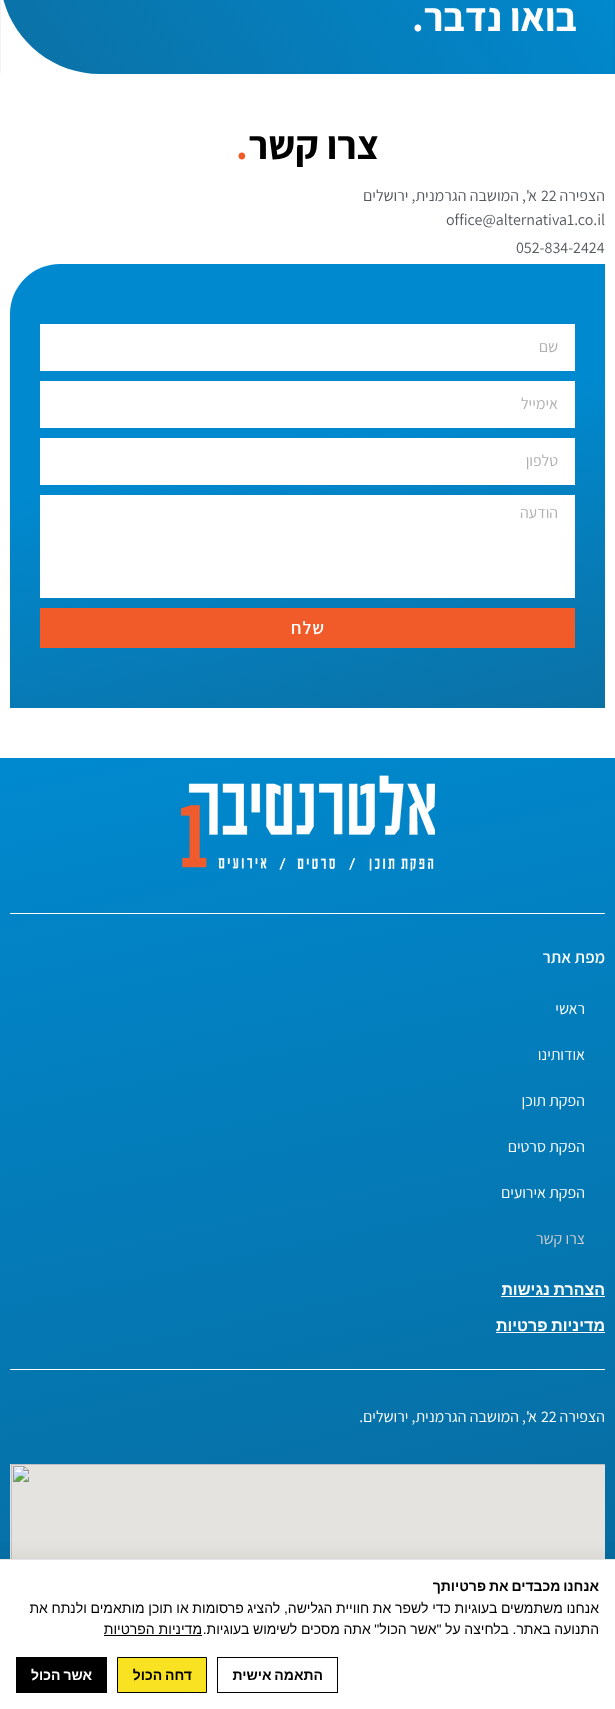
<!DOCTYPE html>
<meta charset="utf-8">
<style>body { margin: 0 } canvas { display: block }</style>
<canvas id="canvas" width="615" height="1709"></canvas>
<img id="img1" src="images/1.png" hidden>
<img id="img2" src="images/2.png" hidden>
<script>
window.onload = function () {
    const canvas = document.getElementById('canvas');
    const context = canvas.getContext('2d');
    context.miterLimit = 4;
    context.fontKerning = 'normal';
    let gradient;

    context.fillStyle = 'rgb(255, 255, 255)';
    context.fillRect(0, 0, 615, 1709);
    gradient = context.createLinearGradient(526, -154, 89, 187);
    gradient.addColorStop(0, 'rgb(0, 137, 207)');
    gradient.addColorStop(1, 'rgb(11, 113, 165)');
    context.fillStyle = gradient;
    context.beginPath();
    context.moveTo(0, -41);
    context.lineTo(615, -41);
    context.lineTo(615, 74);
    context.lineTo(100, 74);
    context.bezierCurveTo(45, 74, 0, 29, 0, -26);
    context.closePath();
    context.fill();
    gradient = context.createLinearGradient(526, -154, 89, 187);
    gradient.addColorStop(0, 'rgb(0, 131, 200)');
    gradient.addColorStop(1, 'rgb(11, 108, 160)');
    context.fillStyle = gradient;
    context.fillRect(614, 0, 1, 73);
    context.fillStyle = 'rgb(242, 243, 245)';
    context.fillRect(0, 0, 1, 73);
    gradient = context.createLinearGradient(249, 213, 366, 759);
    gradient.addColorStop(0.41, 'rgb(0, 137, 207)');
    gradient.addColorStop(1, 'rgb(11, 113, 165)');
    context.fillStyle = gradient;
    context.beginPath();
    context.roundRect(10, 264, 595, 444, [50, 0, 0, 0]);
    context.fill();
    context.fillStyle = 'rgb(255, 255, 255)';
    context.fillRect(40, 324, 535, 47);
    context.fillRect(40, 381, 535, 47);
    context.fillRect(40, 438, 535, 47);
    context.fillRect(40, 495, 535, 103);
    context.fillStyle = 'rgb(241, 91, 42)';
    context.fillRect(40, 608, 535, 40);
    gradient = context.createLinearGradient(198, 716, 417, 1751);
    gradient.addColorStop(0, 'rgb(0, 137, 207)');
    gradient.addColorStop(1, 'rgb(8, 104, 153)');
    context.fillStyle = gradient;
    context.fillRect(0, 758, 615, 801);
    context.drawImage(document.getElementById('img1'), 181, 775, 254, 96);
    context.fillStyle = 'rgb(255, 255, 255)';
    context.fillRect(10, 913, 595, 1);
    context.fillRect(501, 1296, 104, 1);
    context.fillRect(496, 1332, 109, 1);
    context.fillRect(10, 1369, 595, 1);
    context.drawImage(document.getElementById('img2'), 10, 1464, 595, 95);
    context.fillStyle = 'rgba(0, 0, 0, 0.06)';
    context.filter = 'blur(8px)';
    context.beginPath();
    context.rect(0, 1555, 615, 150);
    context.fill();
    context.filter = 'none';
    context.fillStyle = 'rgb(255, 255, 255)';
    context.fillRect(0, 1560, 615, 149);
    context.fillStyle = 'rgb(229, 229, 229)';
    context.fillRect(0, 1559, 615, 1);
    context.fillStyle = 'rgb(0, 0, 0)';
    context.fillRect(104, 1635, 98, 1);
    context.strokeStyle = 'rgb(0, 0, 0)';
    context.strokeRect(217.5, 1657.5, 120, 35);
    context.fillStyle = 'rgb(248, 226, 34)';
    context.beginPath();
    context.rect(117.5, 1657.5, 89, 35);
    context.fill();
    context.stroke();
    context.fillStyle = 'rgb(0, 0, 0)';
    context.fillRect(16, 1657, 91, 36);
    context.direction = 'rtl';
    context.font = 'bold 40px Assistant';
    context.fillStyle = 'rgb(255, 255, 255)';
    context.fillText('בואו נדבר.', 577, 31);
    context.fillStyle = 'rgb(0, 0, 0)';
    context.fillText('צרו קשר', 379, 159);
    context.direction = 'ltr';
    context.fillStyle = 'rgb(241, 91, 42)';
    context.fillText('.', 236, 159);
    context.direction = 'rtl';
    context.font = '16px Assistant';
    context.fillStyle = 'rgb(84, 89, 95)';
    context.fillText('הצפירה', 605, 201);
    context.direction = 'ltr';
    context.fillText('22', 541, 201);
    context.direction = 'rtl';
    context.fillText('א\', המושבה הגרמנית, ירושלים', 537, 201);
    context.direction = 'ltr';
    context.fillText('office@alternativa1.co.il', 446, 225);
    context.fillText('052-834-2424', 516, 253);
    context.direction = 'rtl';
    context.fillStyle = 'rgb(175, 175, 175)';
    context.fillText('שם', 558, 352);
    context.fillText('אימייל', 558, 409);
    context.fillText('טלפון', 558, 466);
    context.fillText('הודעה', 558, 518);
    context.letterSpacing = '1px';
    context.font = '600 18px Assistant';
    context.fillStyle = 'rgb(255, 255, 255)';
    context.fillText('שלח', 325, 634);
    context.letterSpacing = '0px';
    context.font = '600 17px Assistant';
    context.fillText('מפת אתר', 605, 963);
    context.font = '16px Assistant';
    context.fillText('ראשי', 585, 1014);
    context.fillText('אודותינו', 585, 1060);
    context.fillText('הפקת תוכן', 585, 1106);
    context.fillText('הפקת סרטים', 585, 1152);
    context.fillText('הפקת אירועים', 585, 1198);
    context.fillStyle = 'rgb(206, 206, 206)';
    context.fillText('צרו קשר', 585, 1244);
    context.wordSpacing = '-1px';
    context.font = 'bold 16px Liberation Sans';
    context.fillStyle = 'rgb(255, 255, 255)';
    context.fillText('הצהרת נגישות', 605, 1295);
    context.fillText('מדיניות פרטיות', 605, 1331);
    context.wordSpacing = '0px';
    context.font = '16px Assistant';
    context.fillText('הצפירה', 605, 1422);
    context.direction = 'ltr';
    context.fillText('22', 541, 1422);
    context.direction = 'rtl';
    context.fillText('א\', המושבה הגרמנית, ירושלים.', 537, 1422);
    context.wordSpacing = '-1px';
    context.font = 'bold 14px Liberation Sans';
    context.fillStyle = 'rgb(0, 0, 0)';
    context.fillText('אנחנו מכבדים את פרטיותך', 599, 1591);
    context.wordSpacing = '-0.25px';
    context.font = '14px Liberation Sans';
    context.fillText('אנחנו משתמשים בעוגיות כדי לשפר את חוויית הגלישה, להציג פרסומות או תוכן מותאמים ולנתח את', 599, 1613);
    context.fillText('התנועה באתר. בלחיצה על "אשר הכול" אתה מסכים לשימוש בעוגיות.', 599, 1634);
    context.wordSpacing = '0px';
    context.fillText('מדיניות הפרטיות', 202, 1634);
    context.wordSpacing = '-1px';
    context.font = 'bold 14px Liberation Sans';
    context.fillText('התאמה אישית', 323, 1680);
    context.fillText('דחה הכול', 192, 1680);
    context.fillStyle = 'rgb(255, 255, 255)';
    context.fillText('אשר הכול', 92, 1680);
};
</script>
